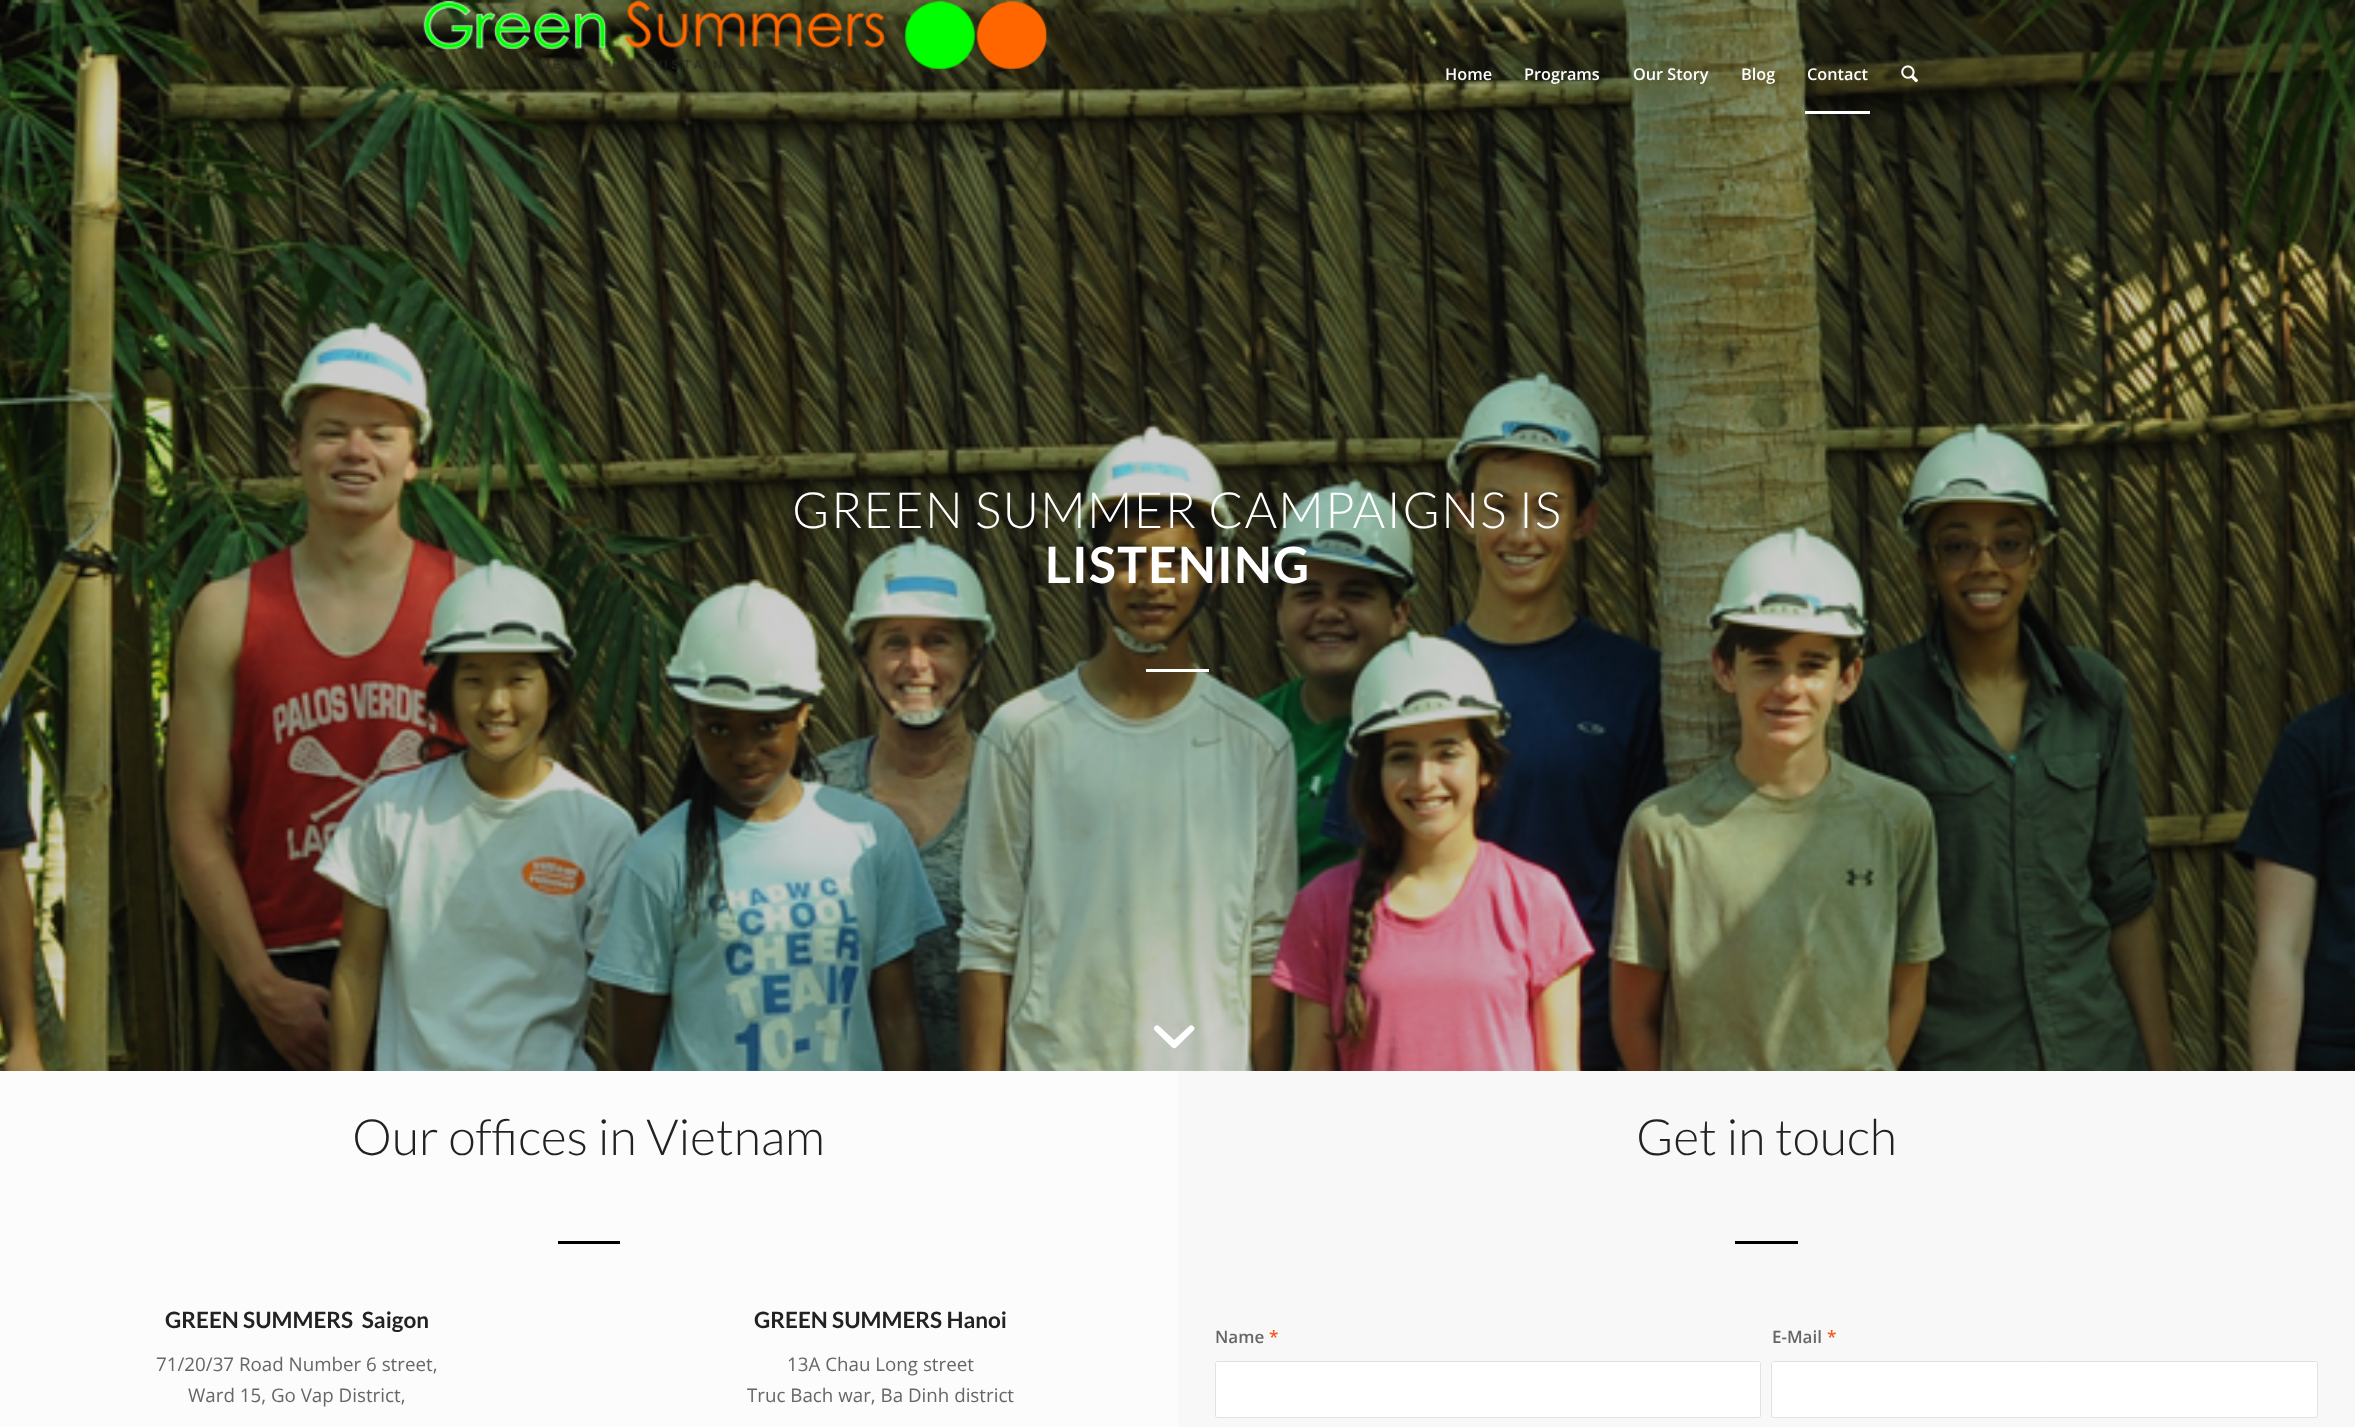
<!DOCTYPE html>
<meta charset="utf-8">
<style>body { margin: 0 } canvas { display: block }</style>
<canvas id="canvas" width="2355" height="1427"></canvas>
<img id="img1" src="images/3.png" hidden>
<img id="img2" src="images/1.png" hidden>
<img id="img3" src="images/2.png" hidden>
<img id="img4" src="images/4.png" hidden>
<script>
window.onload = function () {
    const canvas = document.getElementById('canvas');
    const context = canvas.getContext('2d');
    context.miterLimit = 4;
    context.fontKerning = 'normal';

    context.fillStyle = 'rgb(255, 255, 255)';
    context.fillRect(0, 0, 2355, 1427);
    context.drawImage(document.getElementById('img1'), 0, 0, 2355, 1071);
    context.drawImage(document.getElementById('img2'), 423, 1, 624, 68);
    context.fillRect(1805, 111, 65, 3);
    context.drawImage(document.getElementById('img3'), 1901, 65, 17, 18);
    context.fillRect(1146, 669, 63, 3);
    context.drawImage(document.getElementById('img4'), 1153, 1025, 42, 24);
    context.fillStyle = 'rgb(248, 248, 248)';
    context.fillRect(1178, 1071, 1177, 356);
    context.fillStyle = 'rgb(252, 252, 252)';
    context.fillRect(0, 1071, 1178, 356);
    context.fillStyle = 'rgb(0, 0, 0)';
    context.fillRect(558, 1241, 62, 3);
    context.fillRect(1735, 1241, 63, 3);
    context.fillStyle = 'rgb(255, 255, 255)';
    context.beginPath();
    context.roundRect(1215.5, 1361.5, 545, 56, 2);
    context.fill();
    context.strokeStyle = 'rgb(225, 225, 225)';
    context.stroke();
    context.beginPath();
    context.roundRect(1771.5, 1361.5, 546, 56, 2);
    context.fill();
    context.stroke();
    context.font = '600 16.25px Open Sans';
    context.fillText('Home', 1445, 80);
    context.fillText('Programs', 1524, 80);
    context.fillText('Our Story', 1633, 80);
    context.fillText('Blog', 1741, 80);
    context.fillText('Contact', 1807, 80);
    context.letterSpacing = '1.25px';
    context.font = '300 50px Lato';
    context.fillText('GREEN SUMMER CAMPAIGNS IS', 792, 528);
    context.font = 'bold 50px Lato';
    context.fillText('LISTENING', 1045, 583);
    context.letterSpacing = '0px';
    context.font = '300 50px Lato';
    context.fillStyle = 'rgb(34, 34, 34)';
    context.fillText('Our offices in Vietnam', 352, 1155);
    context.font = 'bold 22.5px Lato';
    context.fillText('GREEN SUMMERS  Saigon', 165, 1328);
    context.font = '18.75px Open Sans';
    context.fillStyle = 'rgb(102, 102, 102)';
    context.fillText('71/20/37 Road Number 6 street,', 156, 1371);
    context.fillText('Ward 15, Go Vap District,', 188, 1402);
    context.font = 'bold 22.5px Lato';
    context.fillStyle = 'rgb(34, 34, 34)';
    context.fillText('GREEN SUMMERS Hanoi', 754, 1328);
    context.font = '18.75px Open Sans';
    context.fillStyle = 'rgb(102, 102, 102)';
    context.fillText('13A Chau Long street', 787, 1371);
    context.fillText('Truc Bach war, Ba Dinh district', 747, 1402);
    context.font = '300 50px Lato';
    context.fillStyle = 'rgb(34, 34, 34)';
    context.fillText('Get in touch', 1636, 1155);
    context.font = '600 17px Open Sans';
    context.fillStyle = 'rgb(102, 102, 102)';
    context.fillText('Name', 1215, 1343);
    context.fillStyle = 'rgb(240, 90, 26)';
    context.fillText('*', 1269, 1343);
    context.fillStyle = 'rgb(102, 102, 102)';
    context.fillText('E-Mail', 1772, 1343);
    context.fillStyle = 'rgb(240, 90, 26)';
    context.fillText('*', 1827, 1343);
};
</script>
